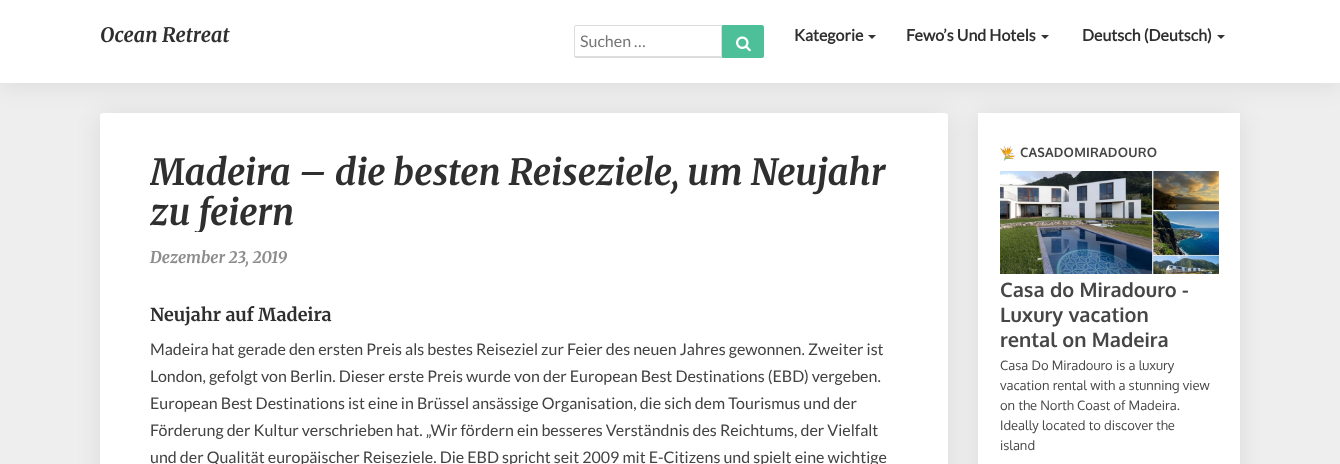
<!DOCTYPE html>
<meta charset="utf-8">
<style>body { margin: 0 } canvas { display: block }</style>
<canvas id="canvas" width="1340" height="464"></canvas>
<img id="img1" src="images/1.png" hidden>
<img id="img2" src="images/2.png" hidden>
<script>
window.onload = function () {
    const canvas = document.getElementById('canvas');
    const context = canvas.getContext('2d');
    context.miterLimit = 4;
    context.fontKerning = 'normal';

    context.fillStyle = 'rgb(238, 238, 238)';
    context.fillRect(0, 0, 1340, 464);
    context.fillStyle = 'rgba(0, 0, 0, 0.08)';
    context.filter = 'blur(12.5px)';
    context.beginPath();
    context.roundRect(100, 115, 848, 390, 3);
    context.fill();
    context.filter = 'none';
    context.fillStyle = 'rgb(255, 255, 255)';
    context.beginPath();
    context.roundRect(100, 113, 848, 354, 3);
    context.fill();
    context.fillStyle = 'rgba(0, 0, 0, 0.08)';
    context.filter = 'blur(12.5px)';
    context.beginPath();
    context.rect(978, 115, 262, 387);
    context.fill();
    context.filter = 'none';
    context.fillStyle = 'rgb(255, 255, 255)';
    context.fillRect(978, 113, 262, 351);
    context.fillStyle = 'rgba(0, 0, 0, 0.08)';
    context.filter = 'blur(12.5px)';
    context.beginPath();
    context.rect(0, 2, 1340, 83);
    context.fill();
    context.filter = 'none';
    context.fillStyle = 'rgb(255, 255, 255)';
    context.fillRect(0, 0, 1340, 83);
    context.beginPath();
    context.roundRect(574.5, 25.5, 147, 32, [1.5, 0, 0, 1.5]);
    context.strokeStyle = 'rgb(221, 221, 221)';
    context.stroke();
    context.fillStyle = 'rgb(221, 221, 221)';
    context.fillRect(575, 56, 147, 1);
    context.fillStyle = 'rgb(77, 191, 153)';
    context.beginPath();
    context.roundRect(722.5, 25.5, 41, 32, [0, 1.5, 1.5, 0]);
    context.fill();
    context.strokeStyle = 'rgb(77, 191, 153)';
    context.stroke();
    context.drawImage(document.getElementById('img1'), 736, 36, 15, 16);
    context.fillStyle = 'rgb(51, 51, 51)';
    context.beginPath();
    context.moveTo(868, 35);
    context.lineTo(876, 35);
    context.lineTo(872, 39);
    context.closePath();
    context.fill();
    context.beginPath();
    context.moveTo(1041, 35);
    context.lineTo(1049, 35);
    context.lineTo(1045, 39);
    context.closePath();
    context.fill();
    context.beginPath();
    context.moveTo(1217, 35);
    context.lineTo(1225, 35);
    context.lineTo(1221, 39);
    context.closePath();
    context.fill();
    context.drawImage(document.getElementById('img2'), 1000, 145, 219, 306);
    context.font = 'italic 300 20px Merriweather';
    context.fillStyle = 'rgb(47, 47, 47)';
    context.fillText('Ocean Retreat', 100, 42);
    context.font = '16px Lato';
    context.fillStyle = 'rgb(117, 117, 117)';
    context.fillText('Suchen …', 580, 47);
    context.font = 'bold 16px Lato';
    context.fillStyle = 'rgb(47, 47, 47)';
    context.fillText('Kategorie', 794, 41);
    context.fillText('Fewo’s Und Hotels', 906, 41);
    context.fillText('Deutsch (Deutsch)', 1082, 41);
    context.save();
    context.beginPath();
    context.rect(150, 153, 748, 79);
    context.clip();
    context.font = 'italic 300 36px Merriweather';
    context.fillText('Madeira – die besten Reiseziele, um Neujahr', 150, 185);
    context.fillText('zu feiern', 150, 225);
    context.restore();
    context.font = 'italic 300 16px Merriweather';
    context.fillStyle = 'rgb(140, 140, 140)';
    context.fillText('Dezember 23, 2019', 150, 263);
    context.font = '300 18px Merriweather';
    context.fillStyle = 'rgb(47, 47, 47)';
    context.fillText('Neujahr auf Madeira', 150, 321);
    context.font = '16px Lato';
    context.fillStyle = 'rgb(66, 66, 66)';
    context.fillText('Madeira hat gerade den ersten Preis als bestes Reiseziel zur Feier des neuen Jahres gewonnen. Zweiter ist', 150, 355);
    context.fillText('London, gefolgt von Berlin. Dieser erste Preis wurde von der European Best Destinations (EBD) vergeben.', 150, 382);
    context.fillText('European Best Destinations ist eine in Brüssel ansässige Organisation, die sich dem Tourismus und der', 150, 409);
    context.fillText('Förderung der Kultur verschrieben hat. „Wir fördern ein besseres Verständnis des Reichtums, der Vielfalt', 150, 436);
    context.fillText('und der Qualität europäischer Reiseziele. Die EBD spricht seit 2009 mit E-Citizens und spielt eine wichtige', 150, 463);
};
</script>
